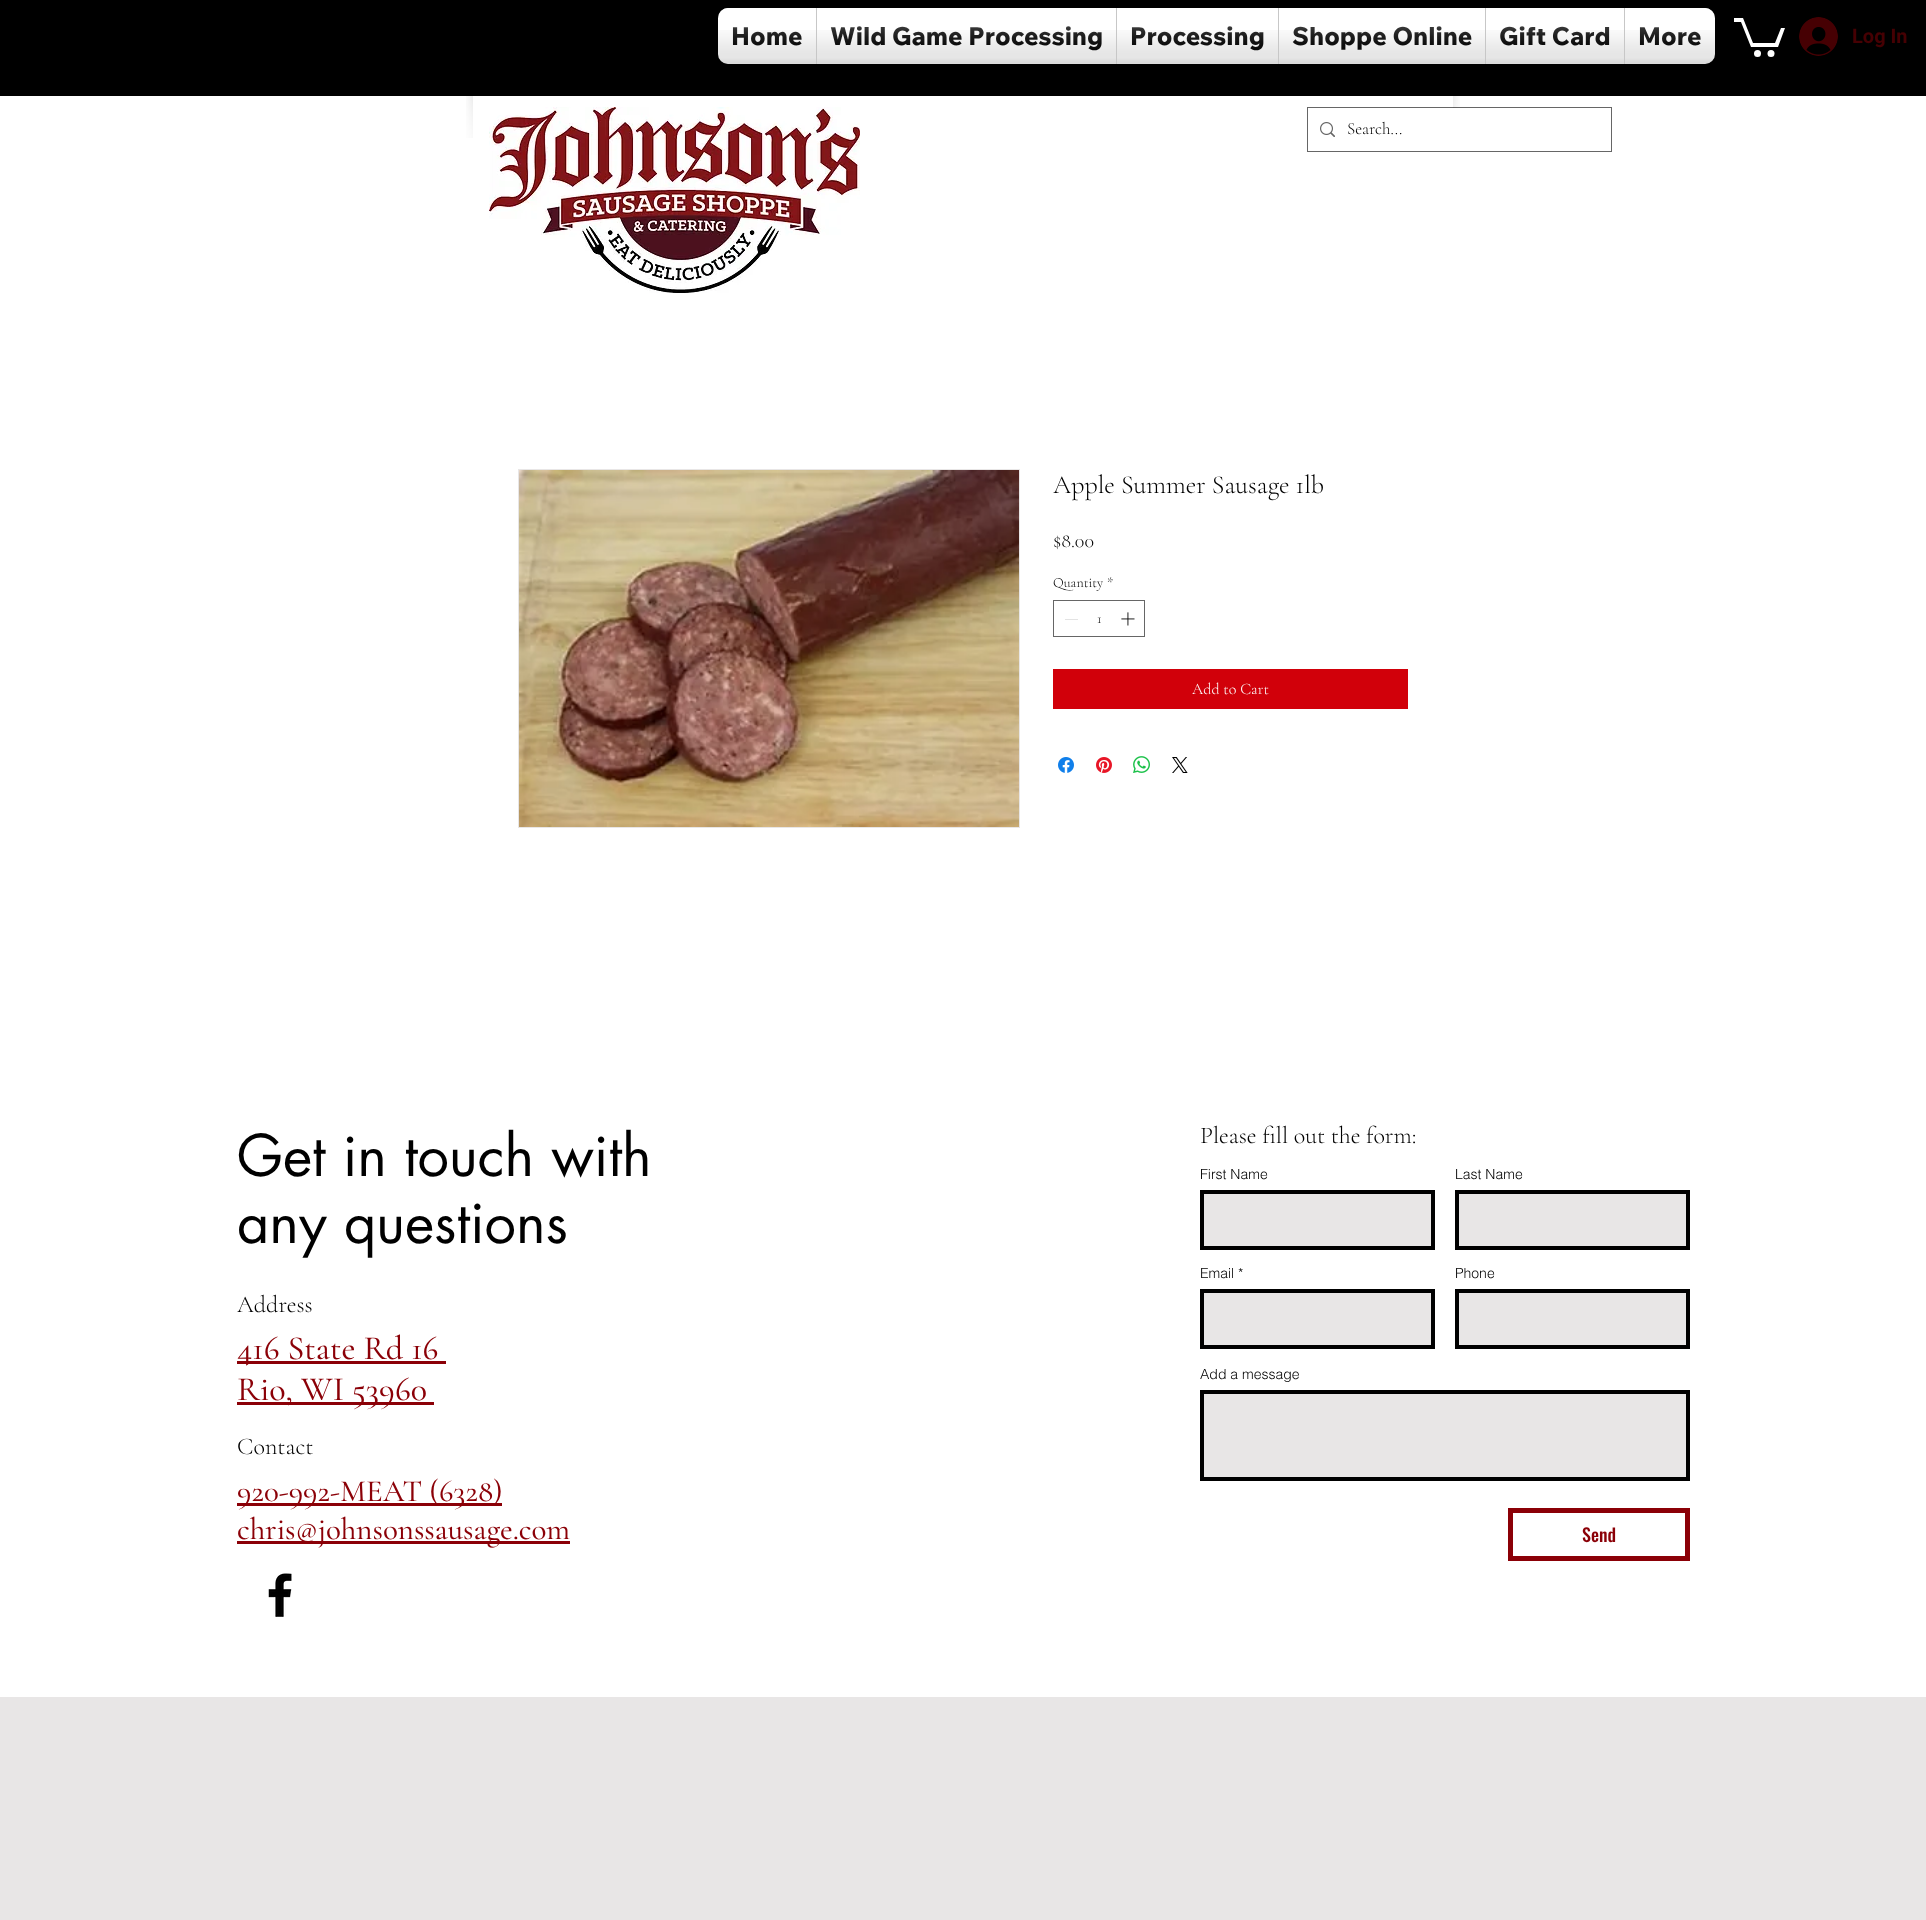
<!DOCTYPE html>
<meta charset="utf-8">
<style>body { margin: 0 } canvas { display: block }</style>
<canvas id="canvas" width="1926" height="1920"></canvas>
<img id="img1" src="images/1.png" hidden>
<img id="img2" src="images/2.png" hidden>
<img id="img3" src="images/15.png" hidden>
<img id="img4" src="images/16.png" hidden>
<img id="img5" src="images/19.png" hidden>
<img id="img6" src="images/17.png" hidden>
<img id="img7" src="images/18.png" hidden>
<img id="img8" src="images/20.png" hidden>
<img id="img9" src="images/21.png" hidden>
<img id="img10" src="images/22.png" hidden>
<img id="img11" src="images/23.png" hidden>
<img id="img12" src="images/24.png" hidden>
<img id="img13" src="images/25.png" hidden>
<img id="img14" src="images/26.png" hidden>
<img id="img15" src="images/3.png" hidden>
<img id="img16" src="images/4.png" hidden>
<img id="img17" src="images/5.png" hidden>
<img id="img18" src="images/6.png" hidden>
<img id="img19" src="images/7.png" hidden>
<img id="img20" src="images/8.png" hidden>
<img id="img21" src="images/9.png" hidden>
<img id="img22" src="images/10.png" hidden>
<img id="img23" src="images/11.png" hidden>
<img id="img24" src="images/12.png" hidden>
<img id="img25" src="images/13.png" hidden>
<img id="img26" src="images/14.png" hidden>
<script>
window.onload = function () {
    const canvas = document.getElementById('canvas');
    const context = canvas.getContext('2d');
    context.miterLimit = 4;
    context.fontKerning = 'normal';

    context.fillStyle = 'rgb(255, 255, 255)';
    context.fillRect(0, 0, 1926, 1920);
    context.fillStyle = 'rgb(0, 0, 0)';
    context.fillRect(0, 0, 1926, 96);
    context.drawImage(document.getElementById('img1'), 718, 8, 997, 9);
    context.drawImage(document.getElementById('img2'), 718, 54, 997, 10);
    context.fillStyle = 'rgb(255, 255, 255)';
    context.beginPath();
    context.roundRect(718, 8, 98, 56, [10, 0, 0, 10]);
    context.fill();
    context.fillRect(817, 8, 299, 56);
    context.fillStyle = 'rgb(199, 199, 199)';
    context.fillRect(816, 8, 1, 56);
    context.fillStyle = 'rgb(255, 255, 255)';
    context.fillRect(1117, 8, 161, 56);
    context.fillStyle = 'rgb(199, 199, 199)';
    context.fillRect(1116, 8, 1, 56);
    context.fillStyle = 'rgb(255, 255, 255)';
    context.fillRect(1279, 8, 206, 56);
    context.fillStyle = 'rgb(199, 199, 199)';
    context.fillRect(1278, 8, 1, 56);
    context.fillStyle = 'rgb(255, 255, 255)';
    context.fillRect(1486, 8, 138, 56);
    context.fillStyle = 'rgb(199, 199, 199)';
    context.fillRect(1485, 8, 1, 56);
    context.fillStyle = 'rgb(255, 255, 255)';
    context.beginPath();
    context.roundRect(1624, 8, 91, 56, [0, 10, 10, 0]);
    context.fill();
    context.fillStyle = 'rgb(199, 199, 199)';
    context.fillRect(1624, 8, 1, 56);
    context.fillStyle = 'rgb(255, 255, 255)';
    context.beginPath();
    context.moveTo(1785, 28);
    context.lineTo(1778, 47);
    context.lineTo(1751, 47);
    context.lineTo(1741, 22);
    context.lineTo(1734, 22);
    context.lineTo(1734, 18);
    context.lineTo(1743, 18);
    context.lineTo(1753, 43);
    context.lineTo(1775, 43);
    context.lineTo(1781, 28);
    context.fill();
    context.beginPath();
    context.arc(1771, 53.5, 3.5, 0, 2 * Math.PI);
    context.fill();
    context.beginPath();
    context.arc(1757.5, 53.5, 3.5, 0, 2 * Math.PI);
    context.fill();
    context.drawImage(document.getElementById('img3'), 1799, 17, 39, 39);
    context.drawImage(document.getElementById('img4'), 489, 107, 371, 186);
    context.drawImage(document.getElementById('img5'), 1453, 96, 7, 12);
    context.strokeStyle = 'rgba(0, 0, 0, 0.6)';
    context.strokeRect(1307.5, 107.5, 304, 44);
    context.drawImage(document.getElementById('img6'), 1320, 122, 15, 15);
    context.drawImage(document.getElementById('img7'), 466, 96, 7, 42);
    context.strokeStyle = 'rgb(232, 230, 230)';
    context.strokeRect(518.5, 469.5, 501, 358);
    context.drawImage(document.getElementById('img8'), 519, 470, 500, 357);
    context.strokeStyle = 'rgb(102, 102, 102)';
    context.strokeRect(1053.5, 600.5, 91, 36);
    context.fillStyle = 'rgb(227, 227, 227)';
    context.fillRect(1065, 619, 13, 1);
    context.drawImage(document.getElementById('img9'), 1121, 612, 14, 14);
    context.fillStyle = 'rgb(209, 0, 10)';
    context.fillRect(1053, 669, 355, 40);
    context.drawImage(document.getElementById('img10'), 1058, 757, 16, 16);
    context.drawImage(document.getElementById('img11'), 1096, 757, 16, 16);
    context.drawImage(document.getElementById('img12'), 1133, 756, 17, 17);
    context.drawImage(document.getElementById('img13'), 1172, 757, 16, 16);
    context.fillStyle = 'rgb(139, 0, 7)';
    context.fillRect(237, 1361, 209, 3);
    context.fillRect(237, 1402, 197, 3);
    context.fillRect(237, 1503, 265, 3);
    context.fillRect(237, 1541, 333, 3);
    context.drawImage(document.getElementById('img14'), 268, 1573, 24, 44);
    context.fillStyle = 'rgb(232, 230, 230)';
    context.beginPath();
    context.rect(1202, 1192, 231, 56);
    context.fill();
    context.strokeStyle = 'rgb(0, 0, 0)';
    context.lineWidth = 4;
    context.stroke();
    context.beginPath();
    context.rect(1457, 1192, 231, 56);
    context.fill();
    context.stroke();
    context.beginPath();
    context.rect(1202, 1291, 231, 56);
    context.fill();
    context.stroke();
    context.beginPath();
    context.rect(1457, 1291, 231, 56);
    context.fill();
    context.stroke();
    context.beginPath();
    context.rect(1202, 1392, 486, 87);
    context.fill();
    context.stroke();
    context.strokeStyle = 'rgb(139, 0, 7)';
    context.lineWidth = 5;
    context.strokeRect(1510.5, 1510.5, 177, 48);
    context.fillRect(0, 1697, 1926, 223);
    context.font = '800 25px Wix Madefor Text';
    context.fillStyle = 'rgb(0, 0, 0)';
    context.fillText('Home', 731, 45);
    context.drawImage(document.getElementById('img15'), 724, 8, 78, 38);
    context.drawImage(document.getElementById('img16'), 718, 30, 98, 34);
    context.fillText('Wild Game Processing', 830, 45);
    context.drawImage(document.getElementById('img17'), 830, 26, 272, 24);
    context.drawImage(document.getElementById('img18'), 817, 30, 299, 34);
    context.fillText('Processing', 1130, 45);
    context.drawImage(document.getElementById('img19'), 1132, 26, 132, 24);
    context.drawImage(document.getElementById('img20'), 1117, 30, 161, 34);
    context.fillText('Shoppe Online', 1292, 45);
    context.drawImage(document.getElementById('img21'), 1293, 26, 178, 24);
    context.drawImage(document.getElementById('img22'), 1279, 30, 206, 34);
    context.fillText('Gift Card', 1499, 45);
    context.drawImage(document.getElementById('img23'), 1500, 26, 110, 20);
    context.drawImage(document.getElementById('img24'), 1486, 30, 138, 34);
    context.fillText('More', 1638, 45);
    context.drawImage(document.getElementById('img25'), 1640, 8, 69, 38);
    context.drawImage(document.getElementById('img26'), 1625, 30, 90, 34);
    context.font = 'bold 20px Roboto';
    context.fillStyle = 'rgb(70, 0, 3)';
    context.fillText('Log In', 1852, 43);
    context.font = '300 17px Cormorant Garamond';
    context.fillStyle = 'rgb(0, 0, 0)';
    context.fillText('Search...', 1347, 134);
    context.font = '300 26px Cormorant Garamond';
    context.fillText('Apple Summer Sausage 1lb', 1053, 493);
    context.font = '300 20px Cormorant Garamond';
    context.fillText('$8.00', 1053, 547);
    context.font = '300 14px Cormorant Garamond';
    context.fillText('Quantity', 1053, 587);
    context.fillText('*', 1107, 587);
    context.fillText('1', 1097, 623);
    context.font = '300 16px Cormorant Garamond';
    context.fillStyle = 'rgb(255, 255, 255)';
    context.fillText('Add to Cart', 1192, 694);
    context.font = '56px futura';
    context.fillStyle = 'rgb(0, 0, 0)';
    context.fillText('Get in touch with', 237, 1176);
    context.fillText('any questions', 237, 1243);
    context.font = '300 24px Cormorant Garamond';
    context.fillText('Address', 237, 1312);
    context.font = '500 34px Cormorant Garamond';
    context.fillStyle = 'rgb(139, 0, 7)';
    context.fillText('416 State Rd 16', 237, 1359);
    context.fillText('Rio, WI 53960', 237, 1400);
    context.font = '300 24px Cormorant Garamond';
    context.fillStyle = 'rgb(0, 0, 0)';
    context.fillText('Contact', 237, 1454);
    context.font = '500 31px Cormorant Garamond';
    context.fillStyle = 'rgb(139, 0, 7)';
    context.fillText('920-992-MEAT (6328)', 237, 1501);
    context.fillText('chris@johnsonssausage.com', 237, 1539);
    context.font = '300 24px Cormorant Garamond';
    context.fillStyle = 'rgb(0, 0, 0)';
    context.fillText('Please fill out the form:', 1200, 1143);
    context.font = '300 14px helvetica';
    context.fillText('First Name', 1200, 1179);
    context.fillText('Last Name', 1455, 1179);
    context.fillText('Email *', 1200, 1278);
    context.fillText('Phone', 1455, 1278);
    context.fillText('Add a message', 1200, 1379);
    context.font = '500 18px Oswald';
    context.fillStyle = 'rgb(139, 0, 7)';
    context.fillText('Send', 1582, 1542);
};
</script>
